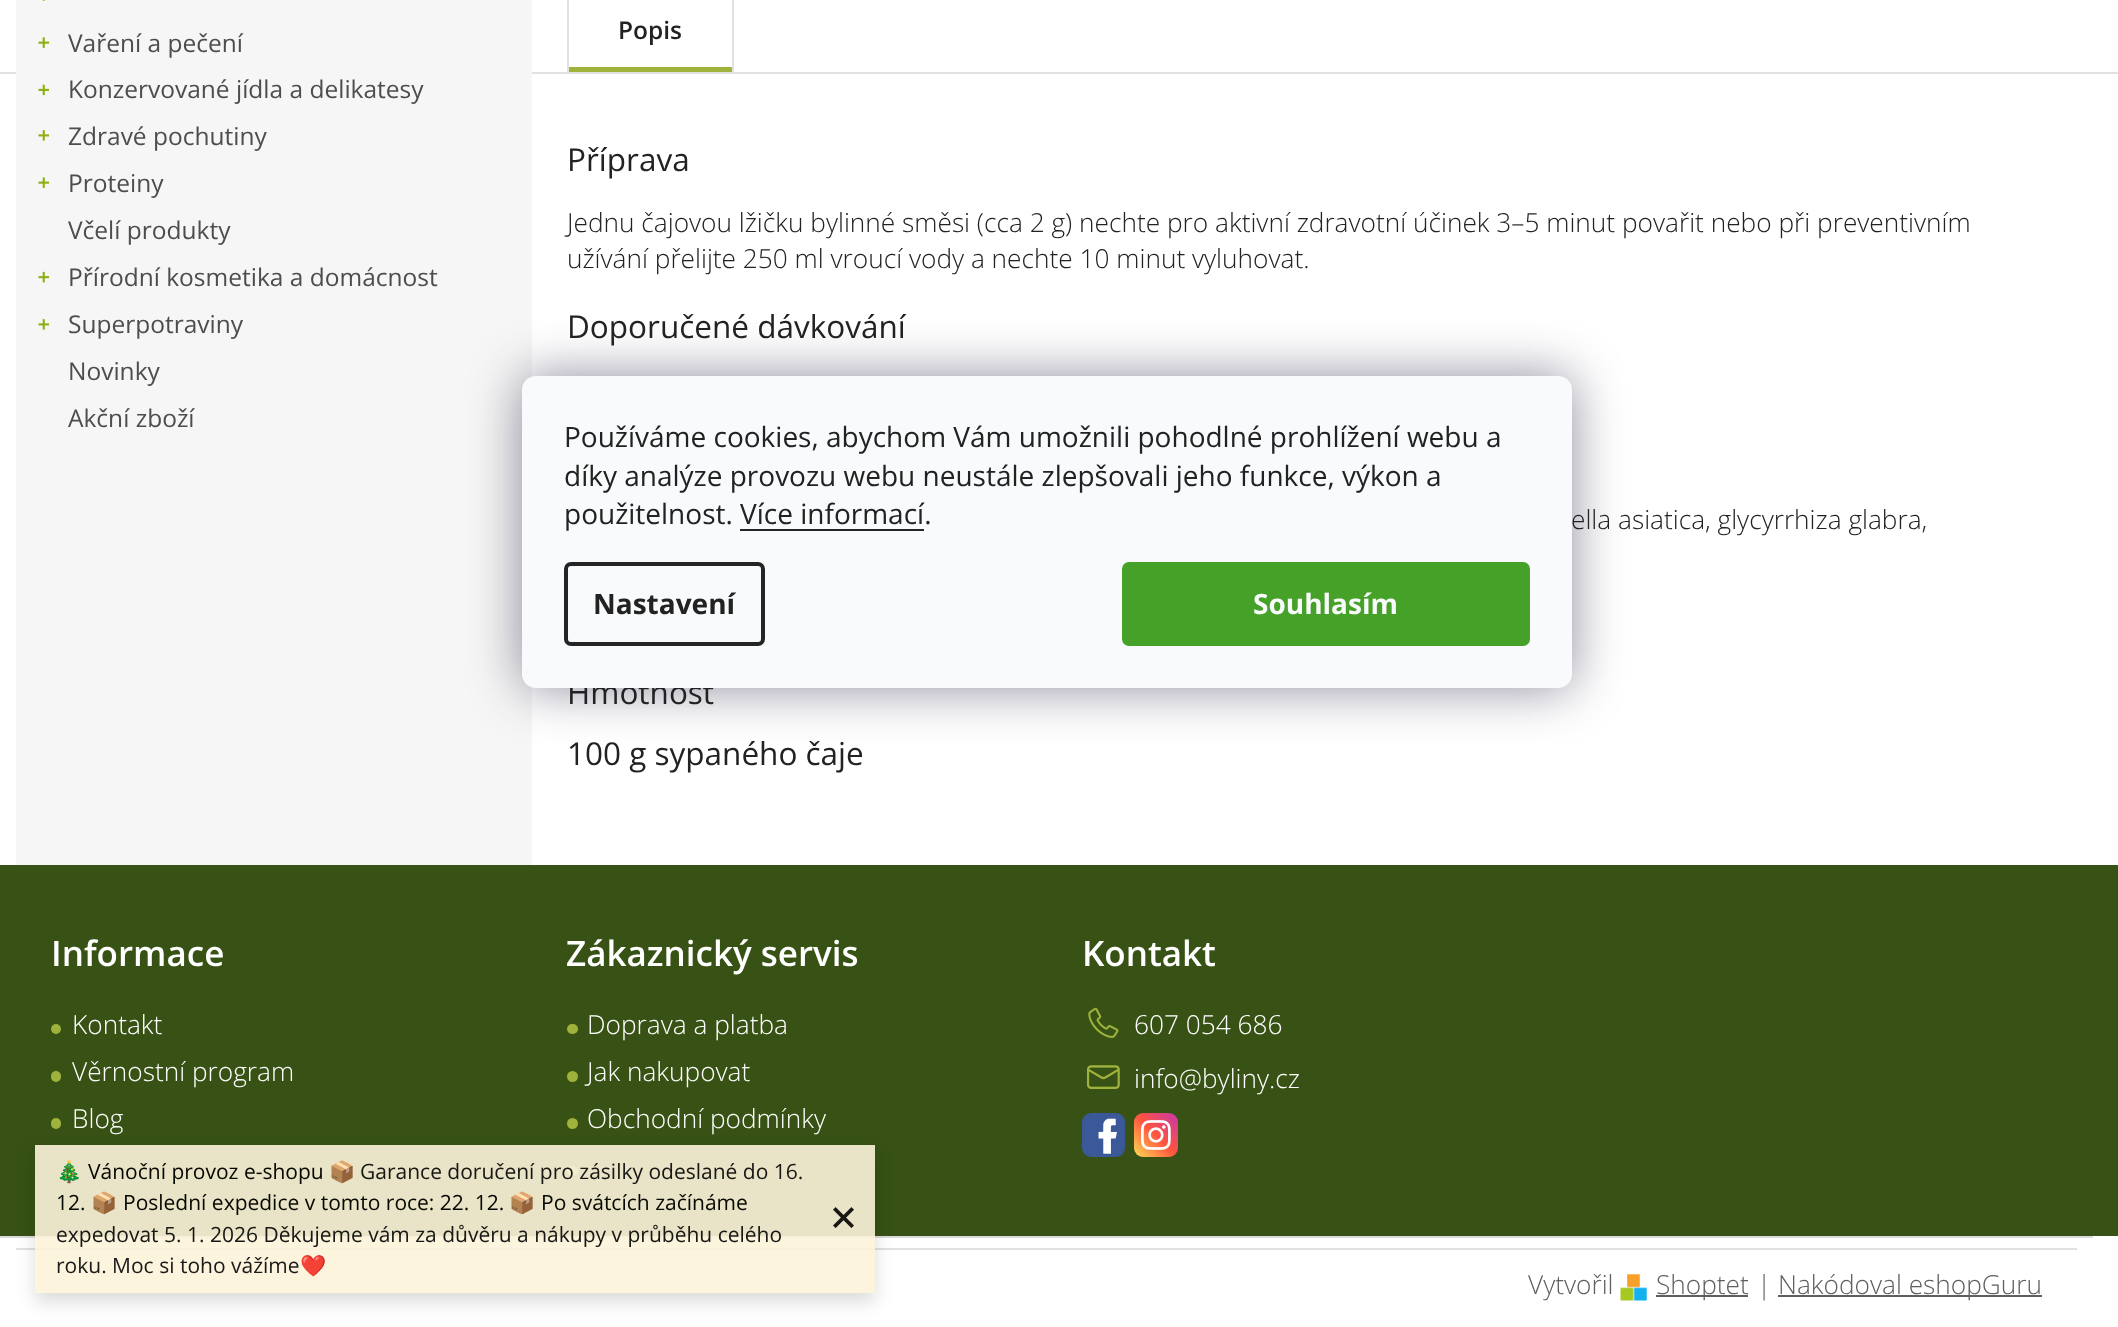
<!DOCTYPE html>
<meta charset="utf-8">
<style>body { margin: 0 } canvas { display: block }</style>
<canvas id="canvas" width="2118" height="1327"></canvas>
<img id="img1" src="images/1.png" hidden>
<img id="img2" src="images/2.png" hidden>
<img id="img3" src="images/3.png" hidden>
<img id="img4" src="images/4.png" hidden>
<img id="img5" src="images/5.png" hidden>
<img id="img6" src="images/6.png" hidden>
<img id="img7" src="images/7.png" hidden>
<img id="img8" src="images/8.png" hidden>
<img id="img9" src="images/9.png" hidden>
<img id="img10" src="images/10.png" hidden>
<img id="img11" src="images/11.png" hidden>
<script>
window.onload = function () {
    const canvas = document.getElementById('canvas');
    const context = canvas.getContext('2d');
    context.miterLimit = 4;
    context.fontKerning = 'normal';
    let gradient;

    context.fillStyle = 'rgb(255, 255, 255)';
    context.fillRect(0, 0, 2118, 1327);
    context.fillStyle = 'rgb(225, 225, 225)';
    context.fillRect(0, 72, 2042, 2);
    context.fillStyle = 'rgb(246, 246, 246)';
    context.fillRect(16, 0, 516, 865);
    context.drawImage(document.getElementById('img1'), 42, 0, 3, 1);
    context.drawImage(document.getElementById('img2'), 38, 37, 11, 11);
    context.drawImage(document.getElementById('img3'), 38, 84, 11, 12);
    context.drawImage(document.getElementById('img4'), 38, 130, 11, 11);
    context.drawImage(document.getElementById('img2'), 38, 177, 11, 11);
    context.drawImage(document.getElementById('img5'), 38, 271, 11, 12);
    context.drawImage(document.getElementById('img4'), 38, 319, 11, 11);
    context.fillStyle = 'rgb(225, 225, 225)';
    context.fillRect(732, 0, 2, 72);
    context.fillRect(567, 0, 2, 72);
    context.fillStyle = 'rgb(159, 178, 60)';
    context.fillRect(569, 67, 163, 5);
    context.fillStyle = 'rgb(225, 225, 225)';
    context.beginPath();
    context.moveTo(569, 74);
    context.lineTo(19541, 74);
    context.lineTo(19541, 72);
    context.lineTo(2042, 72);
    context.lineTo(2042, 74);
    context.closePath();
    context.fill();
    context.fillStyle = 'rgb(55, 82, 20)';
    context.fillRect(0, 865, 2118, 371);
    context.fillStyle = 'rgb(159, 178, 60)';
    context.beginPath();
    context.arc(56, 1029, 5, 0, 2 * Math.PI);
    context.fill();
    context.beginPath();
    context.roundRect(51, 1071, 10, 11, 5);
    context.fill();
    context.beginPath();
    context.roundRect(51, 1118, 10, 11, 5);
    context.fill();
    context.beginPath();
    context.roundRect(567, 1024, 11, 10, 5);
    context.fill();
    context.beginPath();
    context.arc(572.5, 1076.5, 5.5, 0, 2 * Math.PI);
    context.fill();
    context.beginPath();
    context.arc(572.5, 1123.5, 5.5, 0, 2 * Math.PI);
    context.fill();
    context.beginPath();
    context.roundRect(567, 1166, 11, 10, 5);
    context.fill();
    context.drawImage(document.getElementById('img6'), 1088, 1007, 31, 31);
    context.drawImage(document.getElementById('img7'), 1086, 1065, 34, 24);
    context.fillStyle = 'rgb(59, 89, 153)';
    context.beginPath();
    context.roundRect(1082, 1113, 43, 44, 9);
    context.fill();
    context.drawImage(document.getElementById('img8'), 1098, 1118, 19, 36);
    gradient = context.createLinearGradient(1134, 1157, 1178, 1113);
    gradient.addColorStop(0, 'rgb(255, 221, 85)');
    gradient.addColorStop(0.5, 'rgb(255, 84, 62)');
    gradient.addColorStop(1, 'rgb(200, 55, 171)');
    context.fillStyle = gradient;
    context.beginPath();
    context.roundRect(1134, 1113, 44, 44, 9);
    context.fill();
    context.drawImage(document.getElementById('img9'), 1141, 1120, 30, 30);
    context.fillStyle = 'rgb(218, 218, 218)';
    context.fillRect(0, 1236, 2093, 2);
    context.fillStyle = 'rgb(225, 225, 225)';
    context.fillRect(16, 1248, 2061, 2);
    context.save();
    context.beginPath();
    context.moveTo(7, 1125);
    context.lineTo(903, 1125);
    context.lineTo(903, 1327);
    context.lineTo(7, 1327);
    context.closePath();
    context.moveTo(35, 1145);
    context.lineTo(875, 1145);
    context.lineTo(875, 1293);
    context.lineTo(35, 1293);
    context.closePath();
    context.clip('evenodd');
    context.fillStyle = 'rgba(0, 0, 0, 0.14)';
    context.filter = 'blur(9px)';
    context.beginPath();
    context.rect(35, 1153, 840, 149);
    context.fill();
    context.filter = 'none';
    context.restore();
    context.fillStyle = 'rgba(253, 243, 218, 0.9)';
    context.fillRect(35, 1145, 840, 148);
    context.drawImage(document.getElementById('img10'), 833, 1207, 21, 21);
    context.fillStyle = 'rgba(27, 25, 57, 0.5)';
    context.filter = 'blur(26px)';
    context.beginPath();
    context.roundRect(522, 376, 1050, 312, 14);
    context.fill();
    context.filter = 'none';
    context.drawImage(document.getElementById('img11'), 1620, 1274, 27, 27);
    context.fillStyle = 'rgb(95, 95, 95)';
    context.fillRect(1656, 1295, 92, 2);
    context.fillRect(1778, 1295, 264, 2);
    context.font = '24.5px Open Sans';
    context.fillStyle = 'rgb(77, 77, 77)';
    context.fillText('Vaření a pečení', 68, 52);
    context.fillText('Konzervované jídla a delikatesy', 68, 98);
    context.fillText('Zdravé pochutiny', 68, 145);
    context.fillText('Proteiny', 68, 192);
    context.fillText('Včelí produkty', 68, 239);
    context.fillText('Přírodní kosmetika a domácnost', 68, 286);
    context.fillText('Superpotraviny', 68, 333);
    context.fillText('Novinky', 68, 380);
    context.fillText('Akční zboží', 68, 427);
    context.font = '600 24.5px Open Sans';
    context.fillStyle = 'rgb(34, 34, 34)';
    context.fillText('Popis', 618, 39);
    context.font = '31.5px Open Sans';
    context.fillText('Příprava', 567, 171);
    context.font = '300 26.25px Open Sans';
    context.fillText('Jednu čajovou lžičku bylinné směsi (cca 2 g) nechte pro aktivní zdravotní účinek 3–5 minut povařit nebo při preventivním', 567, 232);
    context.fillText('užívání přelijte 250 ml vroucí vody a nechte 10 minut vyluhovat.', 567, 268);
    context.font = '31.5px Open Sans';
    context.fillText('Doporučené dávkování', 567, 338);
    context.font = '300 26.25px Open Sans';
    context.fillText('ella asiatica, glycyrrhiza glabra,', 1571, 529);
    context.font = '31.5px Open Sans';
    context.fillText('Hmotnost', 567, 704);
    context.fillText('100 g sypaného čaje', 567, 765);
    context.font = '600 35px Open Sans';
    context.fillStyle = 'rgb(255, 255, 255)';
    context.fillText('Informace', 51, 966);
    context.font = '300 26.25px Open Sans';
    context.fillText('Kontakt', 72, 1034);
    context.fillText('Věrnostní program', 72, 1081);
    context.fillText('Blog', 72, 1128);
    context.font = '600 35px Open Sans';
    context.fillText('Zákaznický servis', 566, 966);
    context.font = '300 26.25px Open Sans';
    context.fillText('Doprava a platba', 587, 1034);
    context.fillText('Jak nakupovat', 587, 1081);
    context.fillText('Obchodní podmínky', 587, 1128);
    context.font = '600 35px Open Sans';
    context.fillText('Kontakt', 1082, 966);
    context.font = '300 26.25px Open Sans';
    context.fillText('607 054 686', 1134, 1034);
    context.fillText('info@byliny.cz', 1134, 1088);
    context.font = '21px Noto Color Emoji';
    context.fillStyle = 'rgb(6, 8, 2)';
    context.fillText('🎄', 56, 1179);
    context.font = '21px Open Sans';
    context.fillText('Vánoční provoz e-shopu', 88, 1179);
    context.font = '21px Noto Color Emoji';
    context.fillText('📦', 329, 1179);
    context.font = '21px Open Sans';
    context.fillStyle = 'rgb(23, 23, 20)';
    context.fillText('Garance doručení pro zásilky odeslané do 16.', 360, 1179);
    context.fillStyle = 'rgb(6, 8, 2)';
    context.fillText('12.', 56, 1210);
    context.font = '21px Noto Color Emoji';
    context.fillText('📦', 91, 1210);
    context.font = '21px Open Sans';
    context.fillText('Poslední expedice v tomto roce: 22. 12.', 123, 1210);
    context.font = '21px Noto Color Emoji';
    context.fillText('📦', 509, 1210);
    context.font = '21px Open Sans';
    context.fillText('Po svátcích začínáme', 541, 1210);
    context.fillStyle = 'rgb(23, 23, 20)';
    context.fillText('expedovat 5. 1. 2026 Děkujeme vám za důvěru a nákupy v průběhu celého', 56, 1242);
    context.fillStyle = 'rgb(26, 26, 26)';
    context.fillText('roku. Moc si toho vážíme', 56, 1273);
    context.font = '21px Noto Color Emoji';
    context.fillText('❤️', 300, 1273);
    context.fillStyle = 'rgb(248, 250, 251)';
    context.beginPath();
    context.roundRect(522, 376, 1050, 312, 14);
    context.fill();
    context.font = '28px Open Sans';
    context.fillStyle = 'rgb(34, 34, 34)';
    context.fillText('Používáme cookies, abychom Vám umožnili pohodlné prohlížení webu a', 564, 447);
    context.fillText('díky analýze provozu webu neustále zlepšovali jeho funkce, výkon a', 564, 486);
    context.fillText('použitelnost. Více informací.', 564, 524);
    context.fillStyle = 'rgb(37, 37, 37)';
    context.fillRect(740, 529, 184, 2);
    context.beginPath();
    context.roundRect(566, 564, 197, 80, 5);
    context.strokeStyle = 'rgb(37, 37, 37)';
    context.lineWidth = 4;
    context.stroke();
    context.font = 'bold 28px Open Sans';
    context.fillStyle = 'rgb(34, 34, 34)';
    context.fillText('Nastavení', 593, 614);
    context.fillStyle = 'rgb(70, 161, 40)';
    context.beginPath();
    context.roundRect(1122, 562, 408, 84, 7);
    context.fill();
    context.fillStyle = 'rgb(248, 250, 251)';
    context.fillText('Souhlasím', 1253, 614);
    context.font = '300 26.25px Open Sans';
    context.fillStyle = 'rgb(95, 95, 95)';
    context.fillText('Vytvořil', 1528, 1294);
    context.fillText('Shoptet', 1656, 1294);
    context.fillText('|', 1757, 1294);
    context.fillText('Nakódoval eshopGuru', 1778, 1294);
};
</script>
